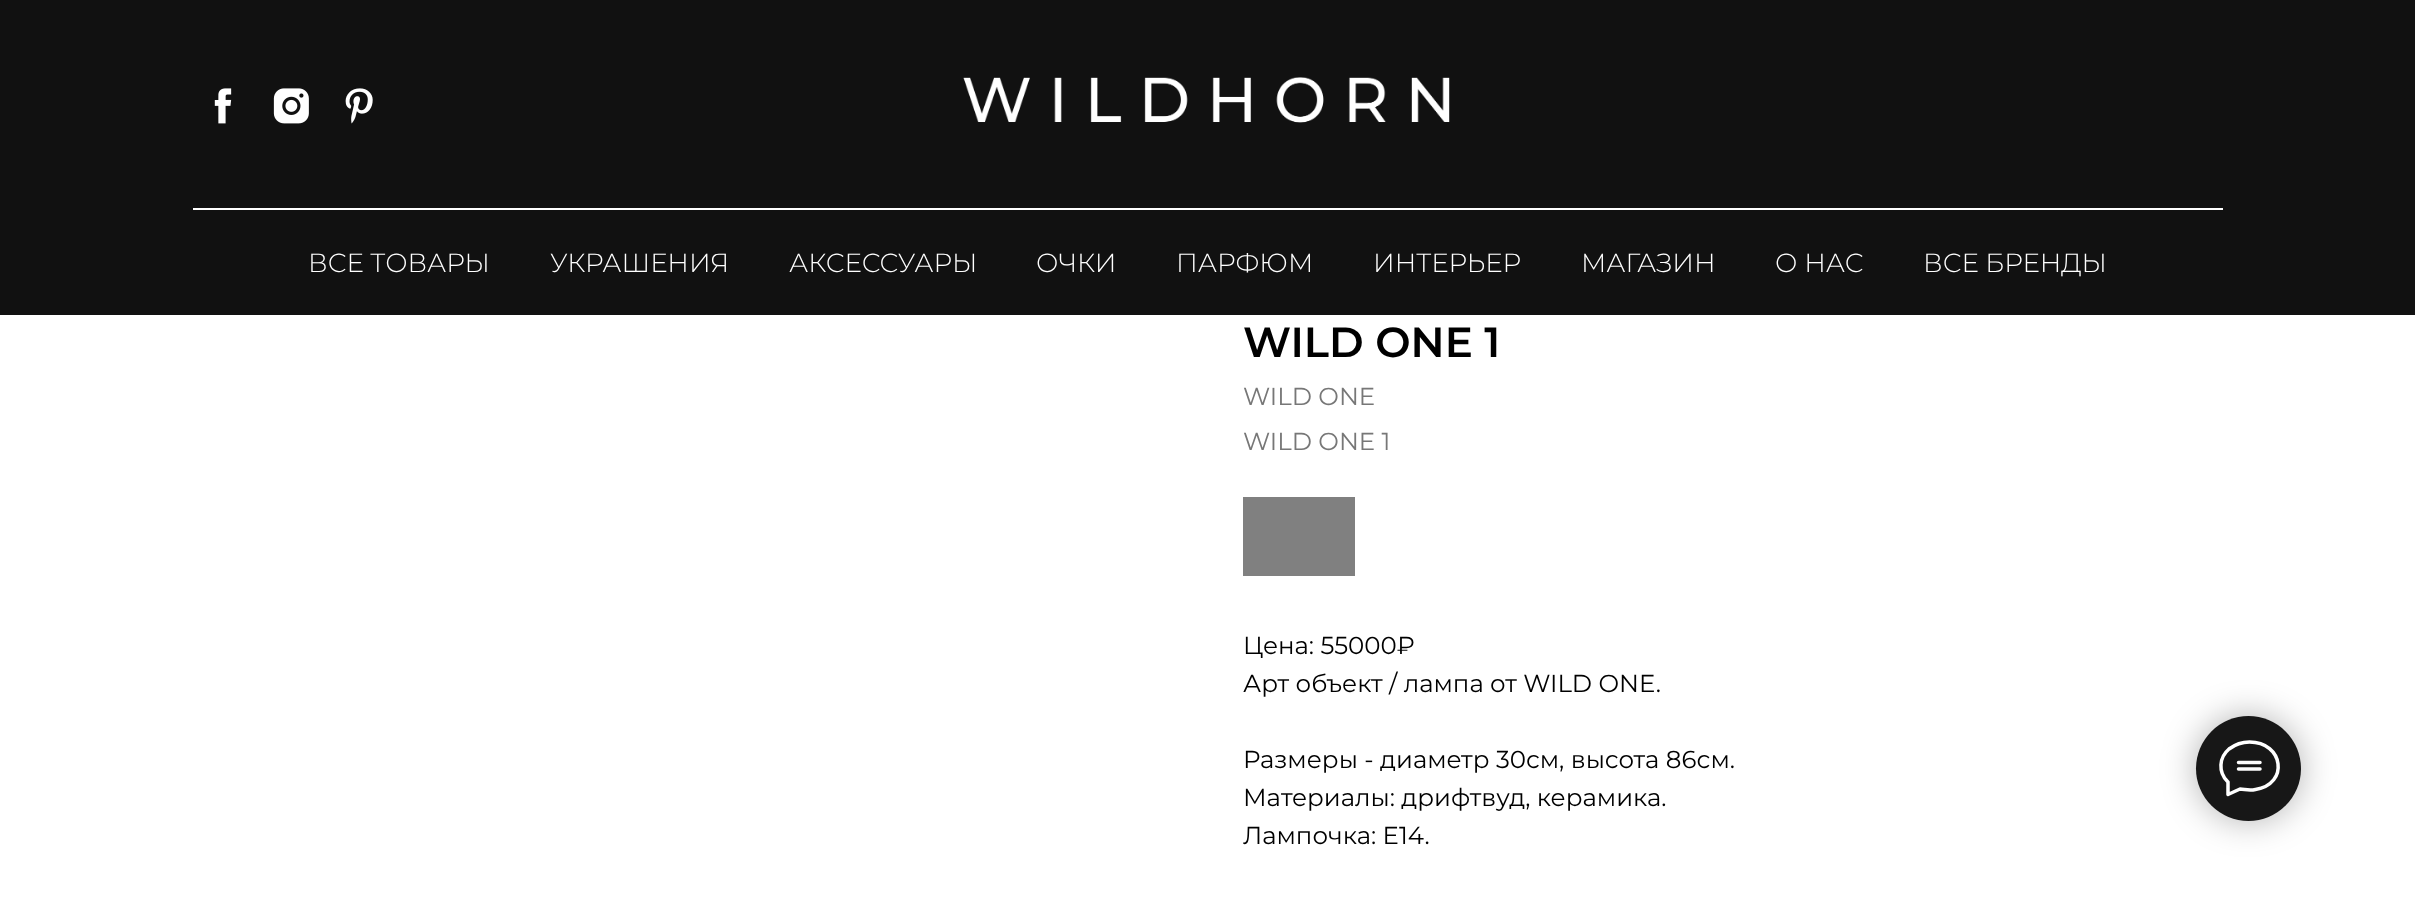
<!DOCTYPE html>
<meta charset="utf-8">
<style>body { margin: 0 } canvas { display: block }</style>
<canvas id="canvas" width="2415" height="908"></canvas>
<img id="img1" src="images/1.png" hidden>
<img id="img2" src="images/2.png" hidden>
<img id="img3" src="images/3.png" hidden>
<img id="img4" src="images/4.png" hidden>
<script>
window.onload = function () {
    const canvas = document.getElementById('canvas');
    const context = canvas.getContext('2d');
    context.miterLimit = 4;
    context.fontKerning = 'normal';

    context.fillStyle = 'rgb(255, 255, 255)';
    context.fillRect(0, 0, 2415, 908);
    context.fillStyle = 'rgb(17, 17, 17)';
    context.fillRect(0, 0, 2415, 315);
    context.drawImage(document.getElementById('img1'), 214, 88, 18, 36);
    context.drawImage(document.getElementById('img2'), 273, 88, 36, 36);
    context.drawImage(document.getElementById('img3'), 345, 88, 28, 36);
    context.drawImage(document.getElementById('img4'), 963, 77, 487, 46);
    context.fillStyle = 'rgb(255, 255, 255)';
    context.fillRect(193, 208, 2030, 2);
    context.fillStyle = 'rgba(0, 0, 0, 0.3)';
    context.filter = 'blur(17.5px)';
    context.beginPath();
    context.roundRect(2196, 716, 105, 105, 52.5);
    context.fill();
    context.filter = 'none';
    context.fillStyle = 'rgb(23, 23, 23)';
    context.beginPath();
    context.arc(2248.5, 768.5, 52.5, 0, 2 * Math.PI);
    context.fill();
    context.beginPath();
    context.moveTo(2238.5, 762.5);
    context.lineTo(2260, 762.5);
    context.moveTo(2238.5, 769);
    context.lineTo(2260, 769);
    context.moveTo(2227.5, 781.5);
    context.bezierCurveTo(2218, 772, 2219, 757.5, 2229, 749);
    context.bezierCurveTo(2235, 744.5, 2242.5, 742, 2249.5, 742);
    context.bezierCurveTo(2283.5, 742, 2289.5, 784, 2255.5, 789.5);
    context.bezierCurveTo(2249, 791, 2246, 789.5, 2240, 789);
    context.lineTo(2228, 794.5);
    context.lineTo(2228, 782);
    context.closePath();
    context.strokeStyle = 'rgb(255, 255, 255)';
    context.lineWidth = 3.5;
    context.lineCap = 'round';
    context.lineJoin = 'round';
    context.stroke();
    context.fillStyle = 'rgb(128, 128, 128)';
    context.fillRect(1243, 497, 112, 79);
    context.font = '300 26.25px Montserrat';
    context.fillStyle = 'rgb(255, 255, 255)';
    context.fillText('ВСЕ ТОВАРЫ', 308, 272);
    context.fillText('УКРАШЕНИЯ', 550, 272);
    context.fillText('АКСЕССУАРЫ', 789, 272);
    context.fillText('ОЧКИ', 1036, 272);
    context.fillText('ПАРФЮМ', 1176, 272);
    context.fillText('ИНТЕРЬЕР', 1373, 272);
    context.fillText('МАГАЗИН', 1581, 272);
    context.fillText('О НАС', 1775, 272);
    context.fillText('ВСЕ БРЕНДЫ', 1923, 272);
    context.font = '600 42px Montserrat';
    context.fillStyle = 'rgb(0, 0, 0)';
    context.fillText('WILD ONE 1', 1243, 357);
    context.font = '24.5px Montserrat';
    context.fillStyle = 'rgb(119, 119, 119)';
    context.fillText('WILD ONE', 1243, 405);
    context.fillText('WILD ONE 1', 1243, 450);
    context.fillStyle = 'rgb(0, 0, 0)';
    context.fillText('Цена: 55000₽', 1243, 654);
    context.fillText('Арт объект / лампа от WILD ONE.', 1243, 692);
    context.fillText('Размеры - диаметр 30см, высота 86см.', 1243, 768);
    context.fillText('Материалы: дрифтвуд, керамика.', 1243, 806);
    context.fillText('Лампочка: E14.', 1243, 844);
};
</script>
